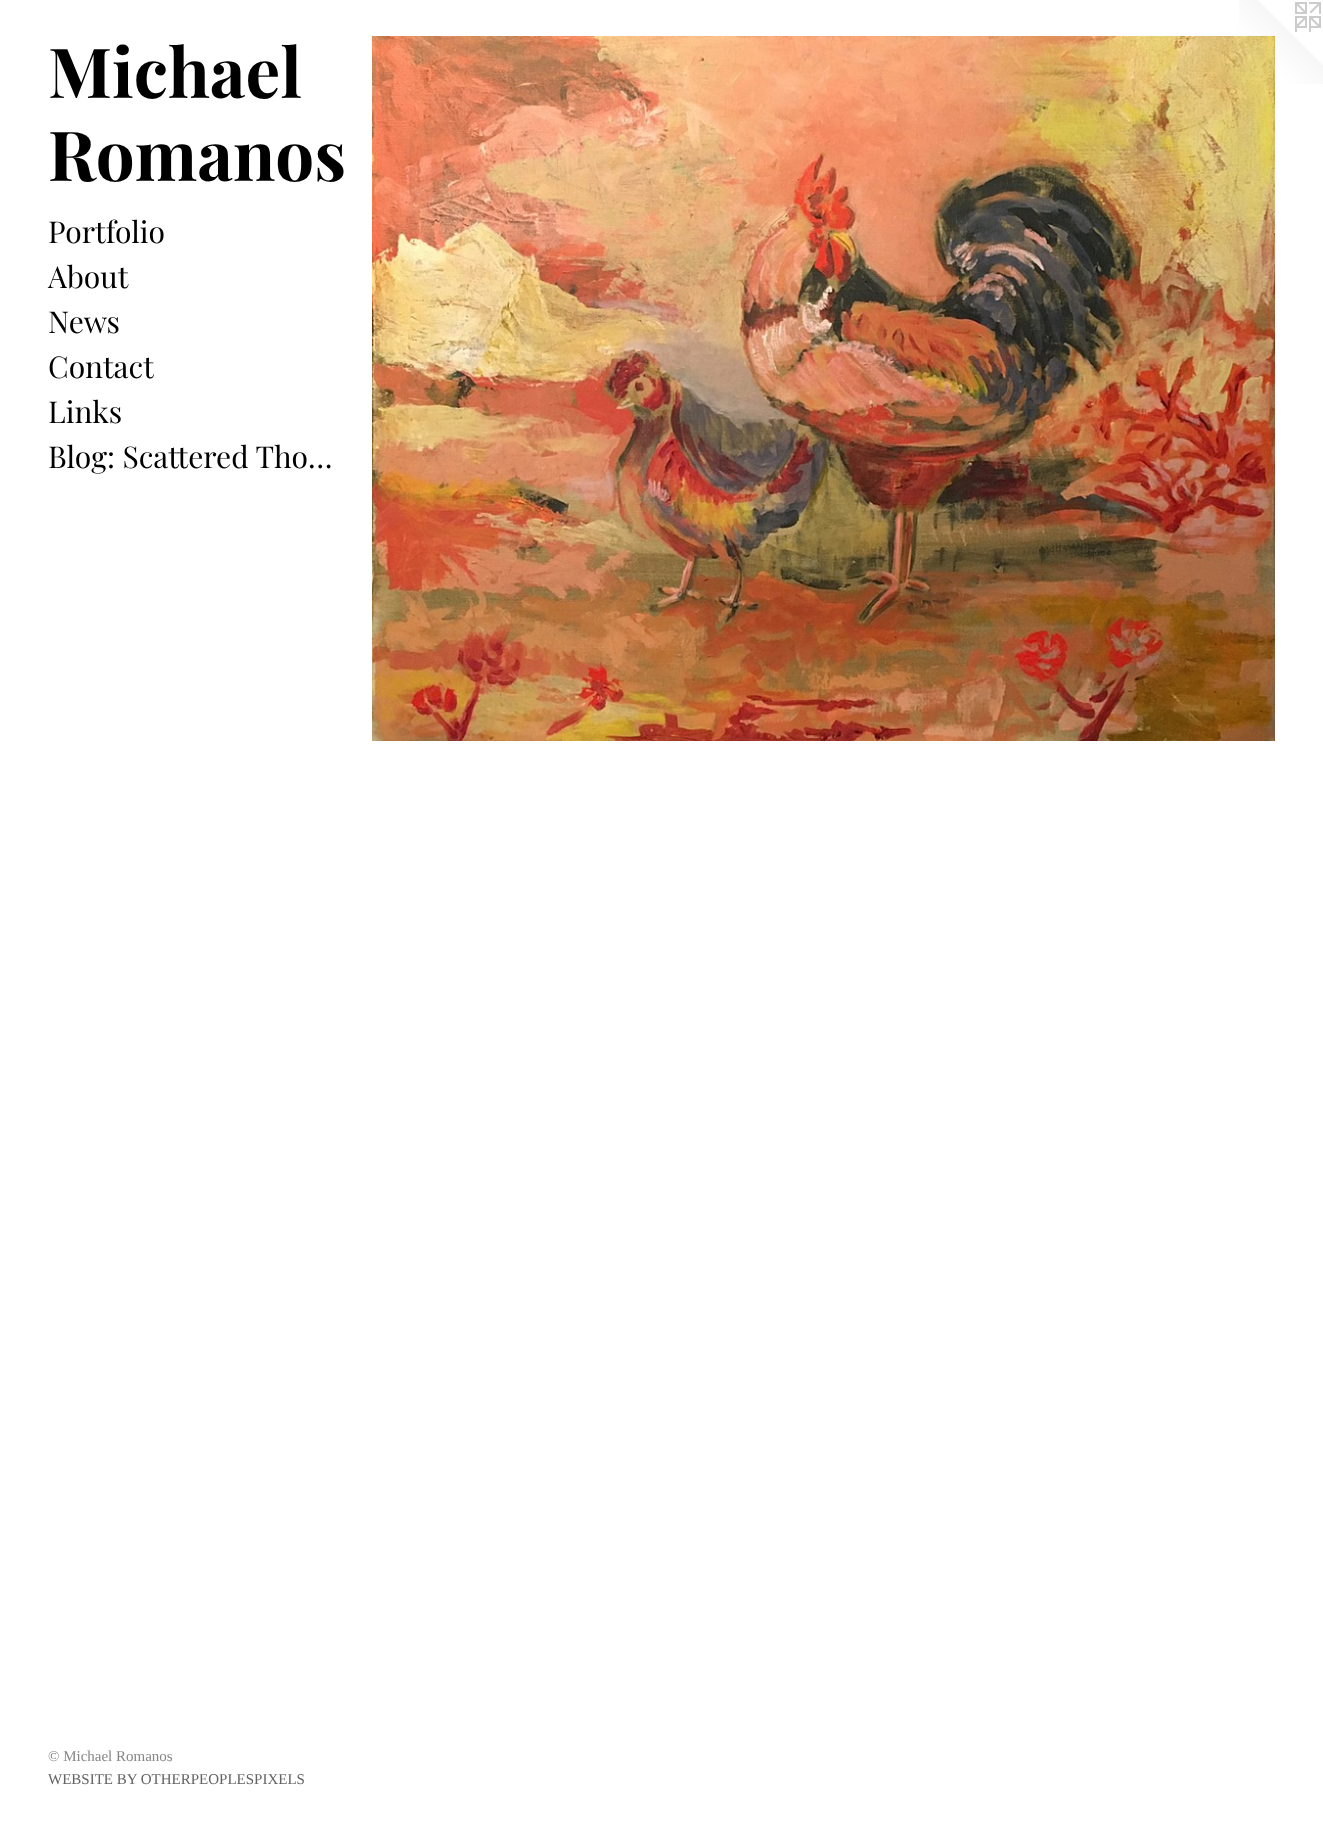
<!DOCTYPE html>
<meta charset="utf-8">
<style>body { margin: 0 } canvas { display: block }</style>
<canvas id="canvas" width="1323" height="1823"></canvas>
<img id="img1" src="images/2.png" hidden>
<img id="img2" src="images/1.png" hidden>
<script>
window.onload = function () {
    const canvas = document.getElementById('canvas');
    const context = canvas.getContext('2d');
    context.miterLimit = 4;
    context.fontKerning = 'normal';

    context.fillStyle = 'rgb(255, 255, 255)';
    context.fillRect(0, 0, 1323, 1823);
    context.drawImage(document.getElementById('img1'), 1239, 0, 84, 84);
    context.drawImage(document.getElementById('img2'), 372, 36, 903, 705);
    context.font = 'bold 69px Playfair Display';
    context.fillStyle = 'rgb(0, 0, 0)';
    context.fillText('Michael', 48, 98);
    context.fillText('Romanos', 48, 181);
    context.font = '30px Playfair Display';
    context.fillText('Portfolio', 48, 243);
    context.fillText('About', 48, 288);
    context.fillText('News', 48, 333);
    context.fillText('Contact', 48, 378);
    context.fillText('Links', 48, 423);
    context.fillText('Blog: Scattered Tho…', 48, 468);
    context.font = '15px Liberation Serif';
    context.fillStyle = 'rgb(133, 133, 133)';
    context.fillText('© Michael Romanos', 48, 1761);
    context.fillStyle = 'rgb(99, 99, 99)';
    context.fillText('WEBSITE BY OTHERPEOPLESPIXELS', 48, 1784);
};
</script>
